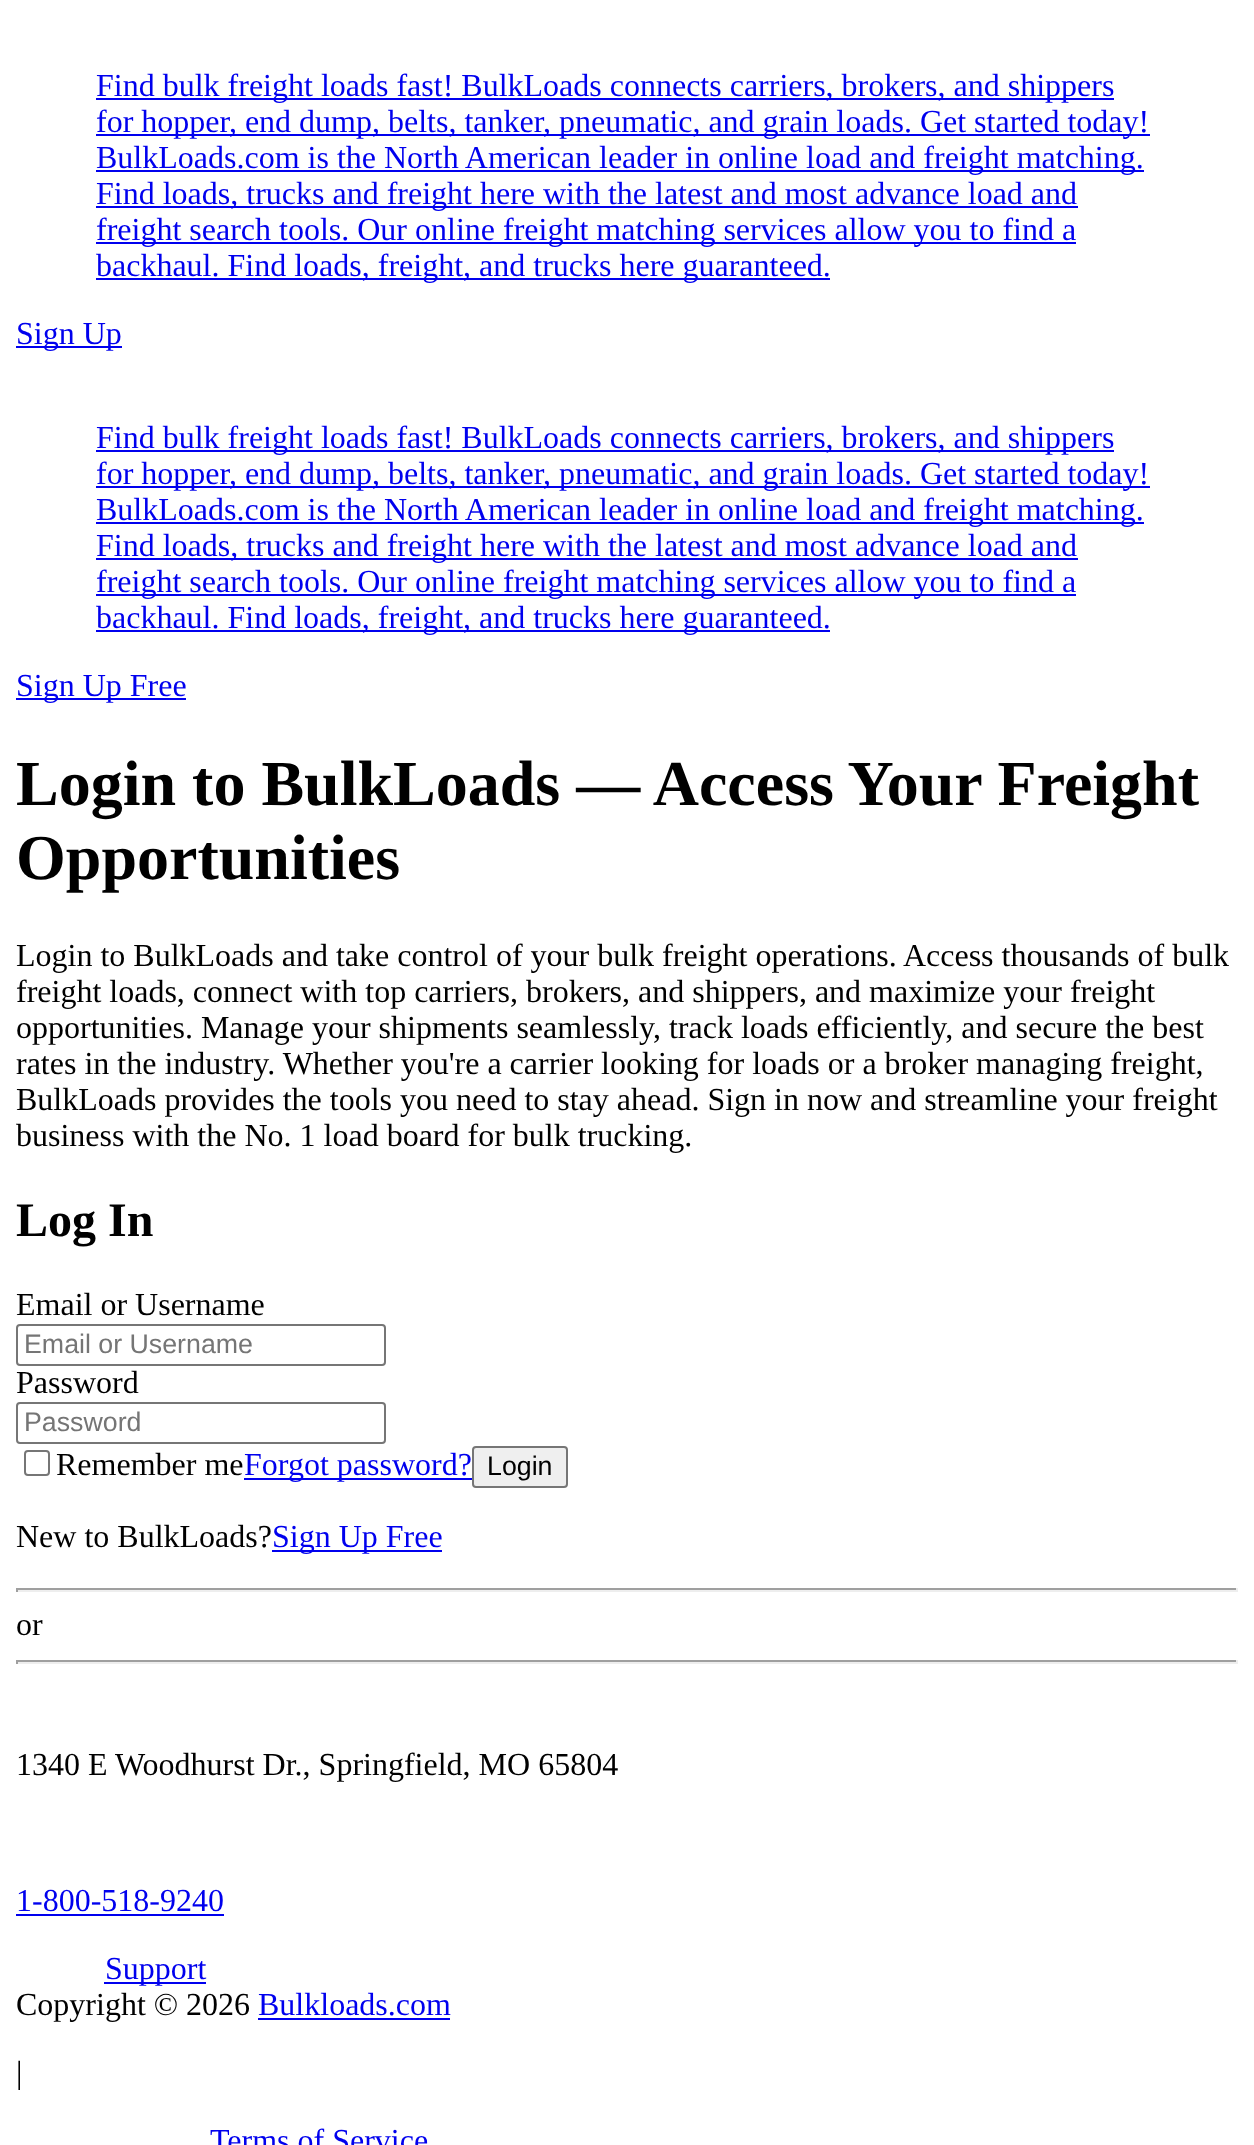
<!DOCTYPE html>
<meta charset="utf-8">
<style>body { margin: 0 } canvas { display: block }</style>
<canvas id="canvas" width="1254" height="2145"></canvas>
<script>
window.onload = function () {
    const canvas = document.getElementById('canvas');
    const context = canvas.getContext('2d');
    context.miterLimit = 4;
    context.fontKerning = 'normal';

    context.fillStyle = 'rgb(255, 255, 255)';
    context.fillRect(0, 0, 1254, 2145);
    context.fillStyle = 'rgb(0, 0, 238)';
    context.fillRect(96, 98, 1018, 2);
    context.fillRect(96, 134, 1054, 2);
    context.fillRect(96, 170, 1048, 2);
    context.fillRect(96, 206, 982, 2);
    context.fillRect(96, 242, 980, 2);
    context.fillRect(96, 278, 734, 2);
    context.fillRect(16, 346, 106, 2);
    context.fillRect(96, 450, 1018, 2);
    context.fillRect(96, 486, 1054, 2);
    context.fillRect(96, 522, 1048, 2);
    context.fillRect(96, 558, 982, 2);
    context.fillRect(96, 594, 980, 2);
    context.fillRect(96, 630, 734, 2);
    context.fillRect(16, 698, 170, 2);
    context.beginPath();
    context.roundRect(17, 1325, 368, 40, 3);
    context.strokeStyle = 'rgb(118, 118, 118)';
    context.lineWidth = 2;
    context.stroke();
    context.beginPath();
    context.roundRect(17, 1403, 368, 40, 3);
    context.stroke();
    context.beginPath();
    context.roundRect(25, 1451, 24, 24, 3);
    context.stroke();
    context.fillRect(244, 1478, 228, 2);
    context.fillStyle = 'rgb(239, 239, 239)';
    context.beginPath();
    context.roundRect(473, 1447, 94, 40, 3);
    context.fill();
    context.stroke();
    context.fillStyle = 'rgb(0, 0, 238)';
    context.fillRect(272, 1550, 170, 2);
    context.fillStyle = 'rgb(159, 159, 159)';
    context.fillRect(16, 1588, 1222, 2);
    context.fillStyle = 'rgb(238, 238, 238)';
    context.fillRect(1236, 1588, 2, 4);
    context.fillRect(16, 1590, 1222, 2);
    context.fillStyle = 'rgb(159, 159, 159)';
    context.fillRect(16, 1588, 2, 4);
    context.fillRect(16, 1660, 1222, 2);
    context.fillStyle = 'rgb(238, 238, 238)';
    context.fillRect(1236, 1660, 2, 4);
    context.fillRect(16, 1662, 1222, 2);
    context.fillStyle = 'rgb(159, 159, 159)';
    context.fillRect(16, 1660, 2, 4);
    context.fillStyle = 'rgb(0, 0, 238)';
    context.fillRect(16, 1914, 208, 2);
    context.fillRect(104, 1982, 102, 2);
    context.fillRect(258, 2018, 192, 2);
    context.font = '32px Liberation Serif';
    context.fillText('Find bulk freight loads fast! BulkLoads connects carriers, brokers, and shippers', 96, 96);
    context.fillText('for hopper, end dump, belts, tanker, pneumatic, and grain loads. Get started today!', 96, 132);
    context.fillText('BulkLoads.com is the North American leader in online load and freight matching.', 96, 168);
    context.fillText('Find loads, trucks and freight here with the latest and most advance load and', 96, 204);
    context.fillText('freight search tools. Our online freight matching services allow you to find a', 96, 240);
    context.fillText('backhaul. Find loads, freight, and trucks here guaranteed.', 96, 276);
    context.fillText('Sign Up', 16, 344);
    context.fillText('Find bulk freight loads fast! BulkLoads connects carriers, brokers, and shippers', 96, 448);
    context.fillText('for hopper, end dump, belts, tanker, pneumatic, and grain loads. Get started today!', 96, 484);
    context.fillText('BulkLoads.com is the North American leader in online load and freight matching.', 96, 520);
    context.fillText('Find loads, trucks and freight here with the latest and most advance load and', 96, 556);
    context.fillText('freight search tools. Our online freight matching services allow you to find a', 96, 592);
    context.fillText('backhaul. Find loads, freight, and trucks here guaranteed.', 96, 628);
    context.fillText('Sign Up Free', 16, 696);
    context.font = 'bold 64px Liberation Serif';
    context.fillStyle = 'rgb(0, 0, 0)';
    context.fillText('Login to BulkLoads — Access Your Freight', 16, 805);
    context.fillText('Opportunities', 16, 879);
    context.font = '32px Liberation Serif';
    context.fillText('Login to BulkLoads and take control of your bulk freight operations. Access thousands of bulk', 16, 966);
    context.fillText('freight loads, connect with top carriers, brokers, and shippers, and maximize your freight', 16, 1002);
    context.fillText('opportunities. Manage your shipments seamlessly, track loads efficiently, and secure the best', 16, 1038);
    context.fillText('rates in the industry. Whether you\'re a carrier looking for loads or a broker managing freight,', 16, 1074);
    context.fillText('BulkLoads provides the tools you need to stay ahead. Sign in now and streamline your freight', 16, 1110);
    context.fillText('business with the No. 1 load board for bulk trucking.', 16, 1146);
    context.font = 'bold 48px Liberation Serif';
    context.fillText('Log In', 16, 1236);
    context.font = '32px Liberation Serif';
    context.fillText('Email or Username', 16, 1315);
    context.font = '26.75px Liberation Sans';
    context.fillStyle = 'rgb(117, 117, 117)';
    context.fillText('Email or Username', 24, 1353);
    context.font = '32px Liberation Serif';
    context.fillStyle = 'rgb(0, 0, 0)';
    context.fillText('Password', 16, 1393);
    context.font = '26.75px Liberation Sans';
    context.fillStyle = 'rgb(117, 117, 117)';
    context.fillText('Password', 24, 1431);
    context.font = '32px Liberation Serif';
    context.fillStyle = 'rgb(0, 0, 0)';
    context.fillText('Remember me', 56, 1475);
    context.fillStyle = 'rgb(0, 0, 238)';
    context.fillText('Forgot password?', 244, 1475);
    context.font = '26.75px Liberation Sans';
    context.fillStyle = 'rgb(0, 0, 0)';
    context.fillText('Login', 487, 1475);
    context.font = '32px Liberation Serif';
    context.fillText('New to BulkLoads?', 16, 1547);
    context.fillStyle = 'rgb(0, 0, 238)';
    context.fillText('Sign Up Free', 272, 1547);
    context.fillStyle = 'rgb(0, 0, 0)';
    context.fillText('or', 16, 1635);
    context.fillText('1340 E Woodhurst Dr., Springfield, MO 65804', 16, 1775);
    context.fillStyle = 'rgb(0, 0, 238)';
    context.fillText('1-800-518-9240', 16, 1911);
    context.fillText('Support', 105, 1979);
    context.fillStyle = 'rgb(0, 0, 0)';
    context.fillText('Copyright © 2026', 16, 2015);
    context.fillStyle = 'rgb(0, 0, 238)';
    context.fillText('Bulkloads.com', 258, 2015);
    context.fillStyle = 'rgb(0, 0, 0)';
    context.fillText('|', 16, 2083);
    context.fillStyle = 'rgb(0, 0, 238)';
    context.fillText('Terms of Service', 210, 2151);
};
</script>
